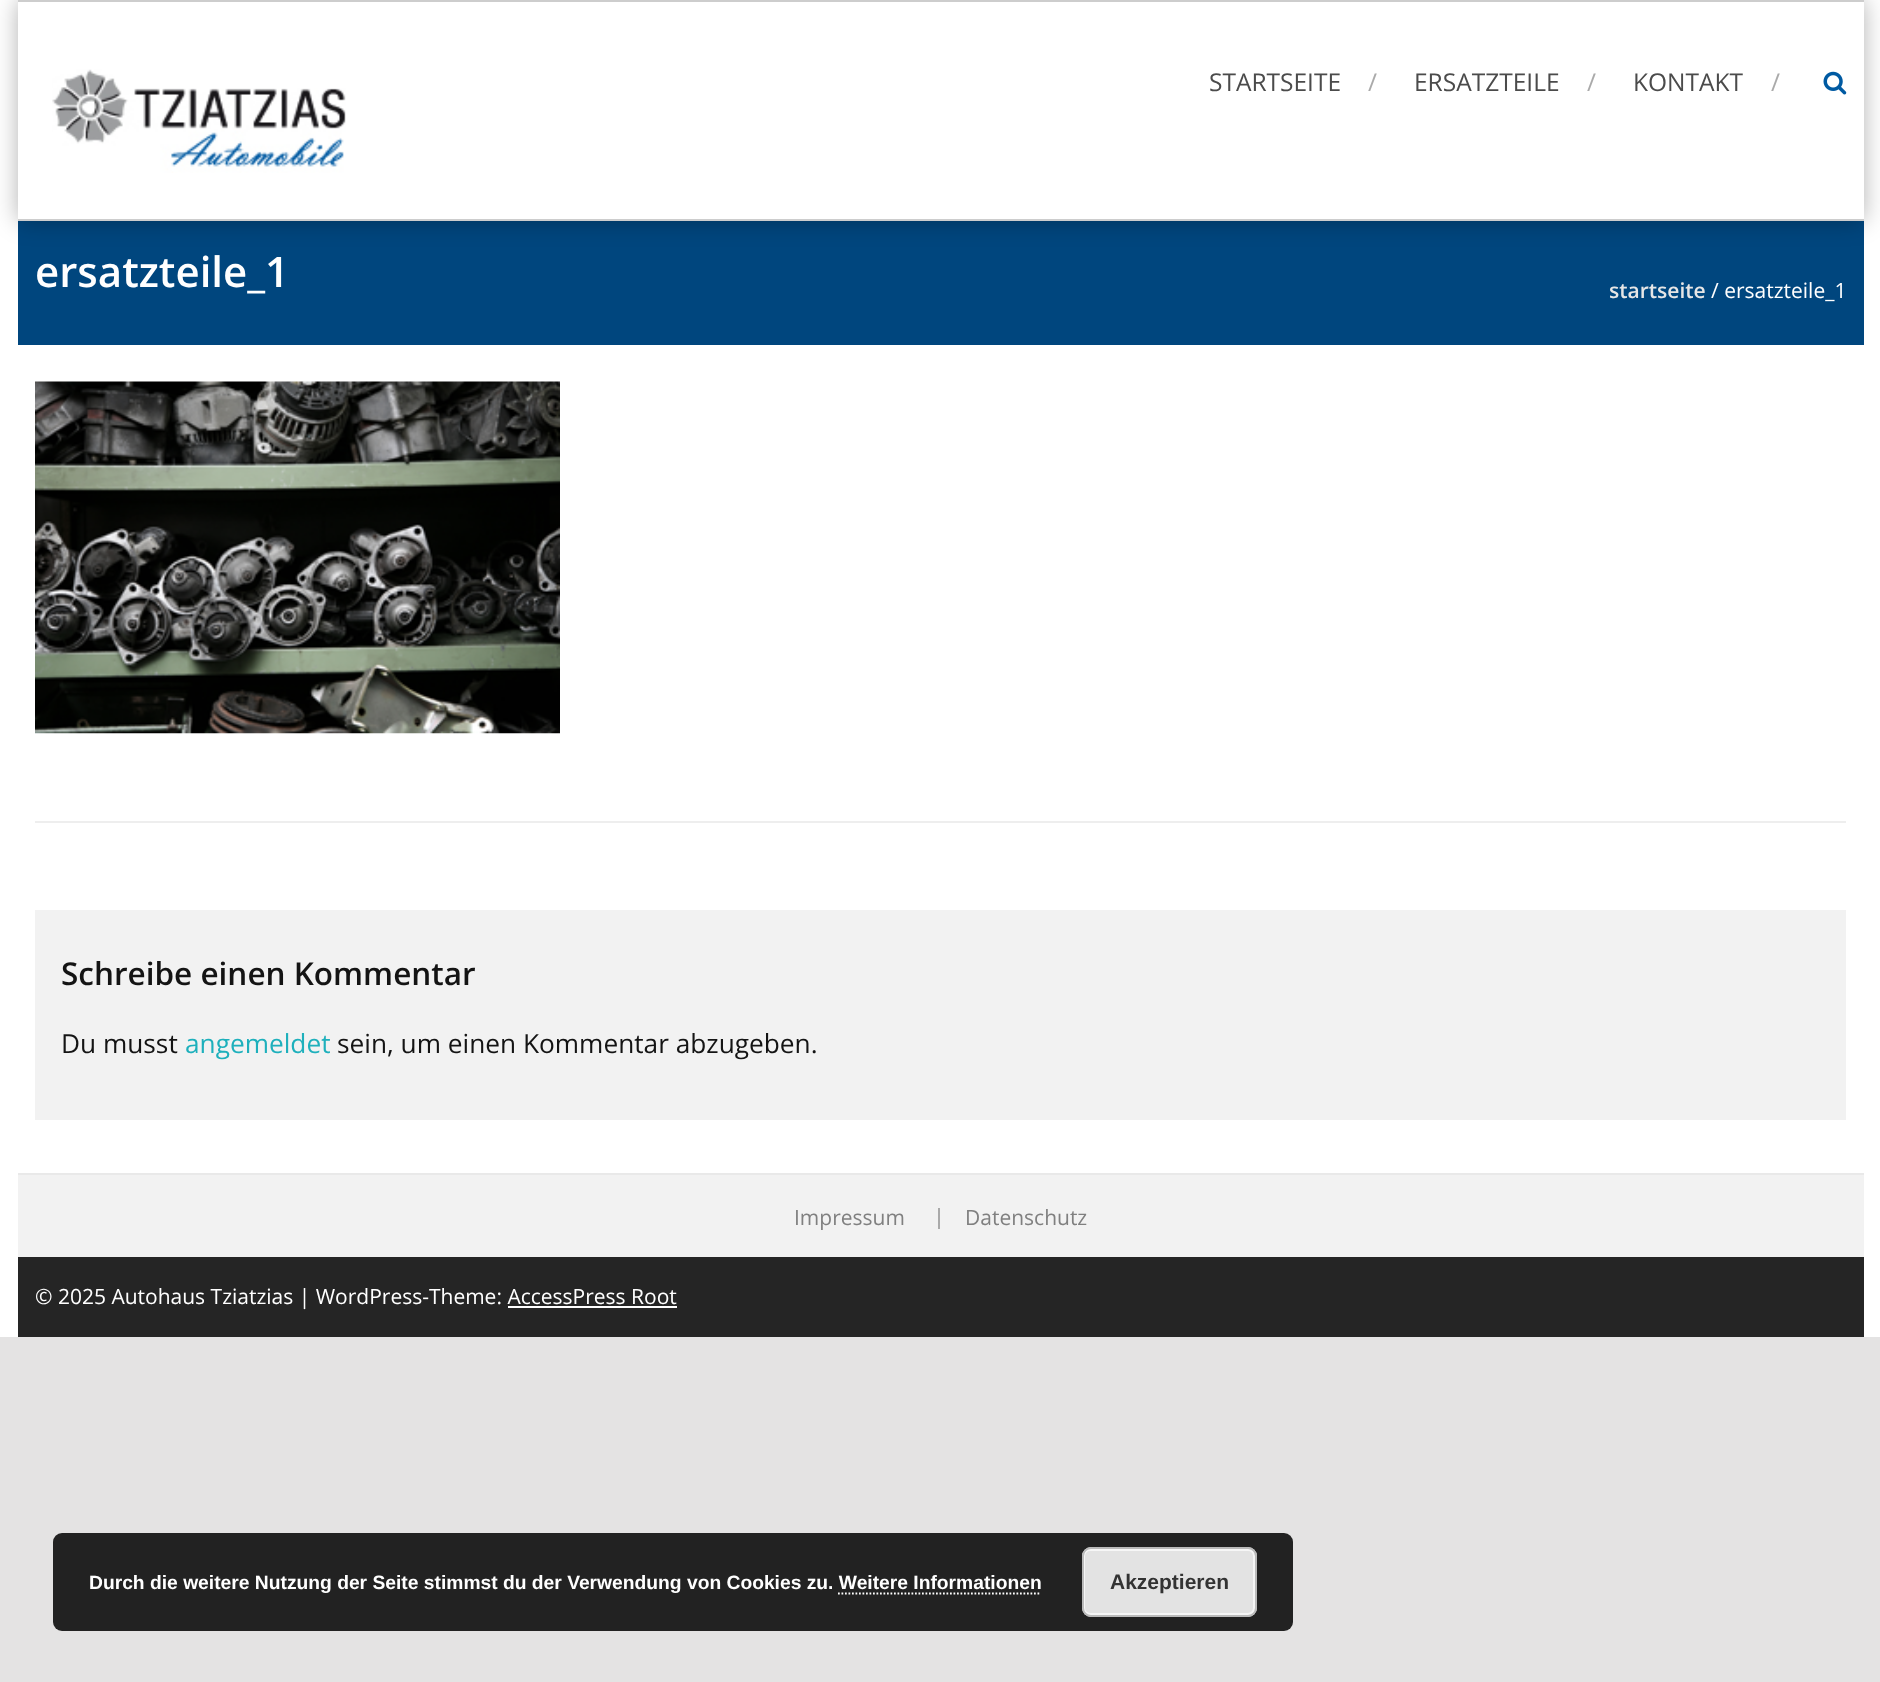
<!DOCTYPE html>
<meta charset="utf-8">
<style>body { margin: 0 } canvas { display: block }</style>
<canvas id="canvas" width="1880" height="1682"></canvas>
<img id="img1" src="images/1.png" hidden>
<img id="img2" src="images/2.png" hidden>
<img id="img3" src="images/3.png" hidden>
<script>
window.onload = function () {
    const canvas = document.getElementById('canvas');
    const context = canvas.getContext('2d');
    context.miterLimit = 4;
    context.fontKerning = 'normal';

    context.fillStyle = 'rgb(228, 227, 227)';
    context.fillRect(0, 0, 1880, 1682);
    context.fillStyle = 'rgb(255, 255, 255)';
    context.fillRect(0, 0, 1880, 1337);
    context.fillStyle = 'rgb(0, 70, 126)';
    context.fillRect(18, 221, 1846, 124);
    context.save();
    context.beginPath();
    context.moveTo(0, 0);
    context.lineTo(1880, 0);
    context.lineTo(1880, 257);
    context.lineTo(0, 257);
    context.closePath();
    context.moveTo(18, 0);
    context.lineTo(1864, 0);
    context.lineTo(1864, 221);
    context.lineTo(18, 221);
    context.closePath();
    context.clip('evenodd');
    context.fillStyle = 'rgba(0, 0, 0, 0.3)';
    context.filter = 'blur(11.5px)';
    context.beginPath();
    context.rect(18, 0, 1846, 221);
    context.fill();
    context.filter = 'none';
    context.restore();
    context.fillStyle = 'rgb(205, 205, 205)';
    context.fillRect(18, 0, 1846, 2);
    context.fillRect(18, 219, 1846, 2);
    context.drawImage(document.getElementById('img1'), 52, 69, 294, 104);
    context.drawImage(document.getElementById('img2'), 1823, 71, 24, 24);
    context.fillStyle = 'rgb(238, 238, 238)';
    context.fillRect(35, 821, 1811, 2);
    context.drawImage(document.getElementById('img3'), 35, 381, 525, 353);
    context.fillStyle = 'rgb(242, 242, 242)';
    context.fillRect(35, 910, 1811, 210);
    context.fillRect(18, 1175, 1846, 82);
    context.fillStyle = 'rgb(233, 233, 233)';
    context.fillRect(18, 1173, 1846, 2);
    context.fillStyle = 'rgb(170, 170, 170)';
    context.fillRect(938, 1208, 2, 21);
    context.fillStyle = 'rgb(37, 37, 37)';
    context.fillRect(18, 1257, 1846, 80);
    context.fillStyle = 'rgb(255, 255, 255)';
    context.fillRect(508, 1306, 169, 2);
    context.fillStyle = 'rgb(34, 34, 34)';
    context.beginPath();
    context.roundRect(53, 1533, 1240, 98, 9);
    context.fill();
    context.fillStyle = 'rgb(227, 227, 227)';
    context.beginPath();
    context.roundRect(1082, 1547, 175, 70, 9);
    context.fill();
    context.beginPath();
    context.roundRect(1084, 1550, 170, 64, 6);
    context.strokeStyle = 'rgb(246, 246, 246)';
    context.lineWidth = 2;
    context.stroke();
    context.beginPath();
    context.roundRect(1083, 1548, 173, 68, 8);
    context.strokeStyle = 'rgb(187, 187, 187)';
    context.stroke();
    context.beginPath();
    context.moveTo(838, 1593.5);
    context.lineTo(1041, 1593.5);
    context.strokeStyle = 'rgb(255, 255, 255)';
    context.lineWidth = 1.8;
    context.setLineDash([1.75, 1.75]);
    context.stroke();
    context.font = '24.5px Open Sans';
    context.fillStyle = 'rgb(75, 75, 75)';
    context.fillText('STARTSEITE', 1209, 91);
    context.fillStyle = 'rgb(170, 170, 170)';
    context.fillText('/', 1368, 91);
    context.fillStyle = 'rgb(75, 75, 75)';
    context.fillText('ERSATZTEILE', 1414, 91);
    context.fillStyle = 'rgb(170, 170, 170)';
    context.fillText('/', 1587, 91);
    context.fillStyle = 'rgb(75, 75, 75)';
    context.fillText('KONTAKT', 1633, 91);
    context.fillStyle = 'rgb(170, 170, 170)';
    context.fillText('/', 1771, 91);
    context.font = '600 42px Open Sans';
    context.fillStyle = 'rgb(255, 255, 255)';
    context.fillText('ersatzteile_1', 35, 287);
    context.font = '600 21px Open Sans';
    context.fillStyle = 'rgb(230, 230, 230)';
    context.fillText('startseite', 1609, 298);
    context.font = '21px Open Sans';
    context.fillStyle = 'rgb(255, 255, 255)';
    context.fillText('/ ersatzteile_1', 1711, 298);
    context.font = '600 31.5px Open Sans';
    context.fillStyle = 'rgb(20, 20, 20)';
    context.fillText('Schreibe einen Kommentar', 61, 985);
    context.font = '26.25px Open Sans';
    context.fillText('Du musst', 61, 1053);
    context.fillStyle = 'rgb(30, 176, 188)';
    context.fillText('angemeldet', 185, 1053);
    context.fillStyle = 'rgb(20, 20, 20)';
    context.fillText('sein, um einen Kommentar abzugeben.', 337, 1053);
    context.font = '21px Open Sans';
    context.fillStyle = 'rgb(128, 128, 128)';
    context.fillText('Impressum', 794, 1225);
    context.fillText('Datenschutz', 965, 1225);
    context.fillStyle = 'rgb(255, 255, 255)';
    context.fillText('© 2025 Autohaus Tziatzias | WordPress-Theme: AccessPress Root', 35, 1304);
    context.font = 'bold 19.25px Liberation Sans';
    context.fillText('Durch die weitere Nutzung der Seite stimmst du der Verwendung von Cookies zu. Weitere Informationen', 89, 1589);
    context.font = 'bold 21px Liberation Sans';
    context.fillStyle = 'rgb(51, 51, 51)';
    context.fillText('Akzeptieren', 1110, 1589);
};
</script>
